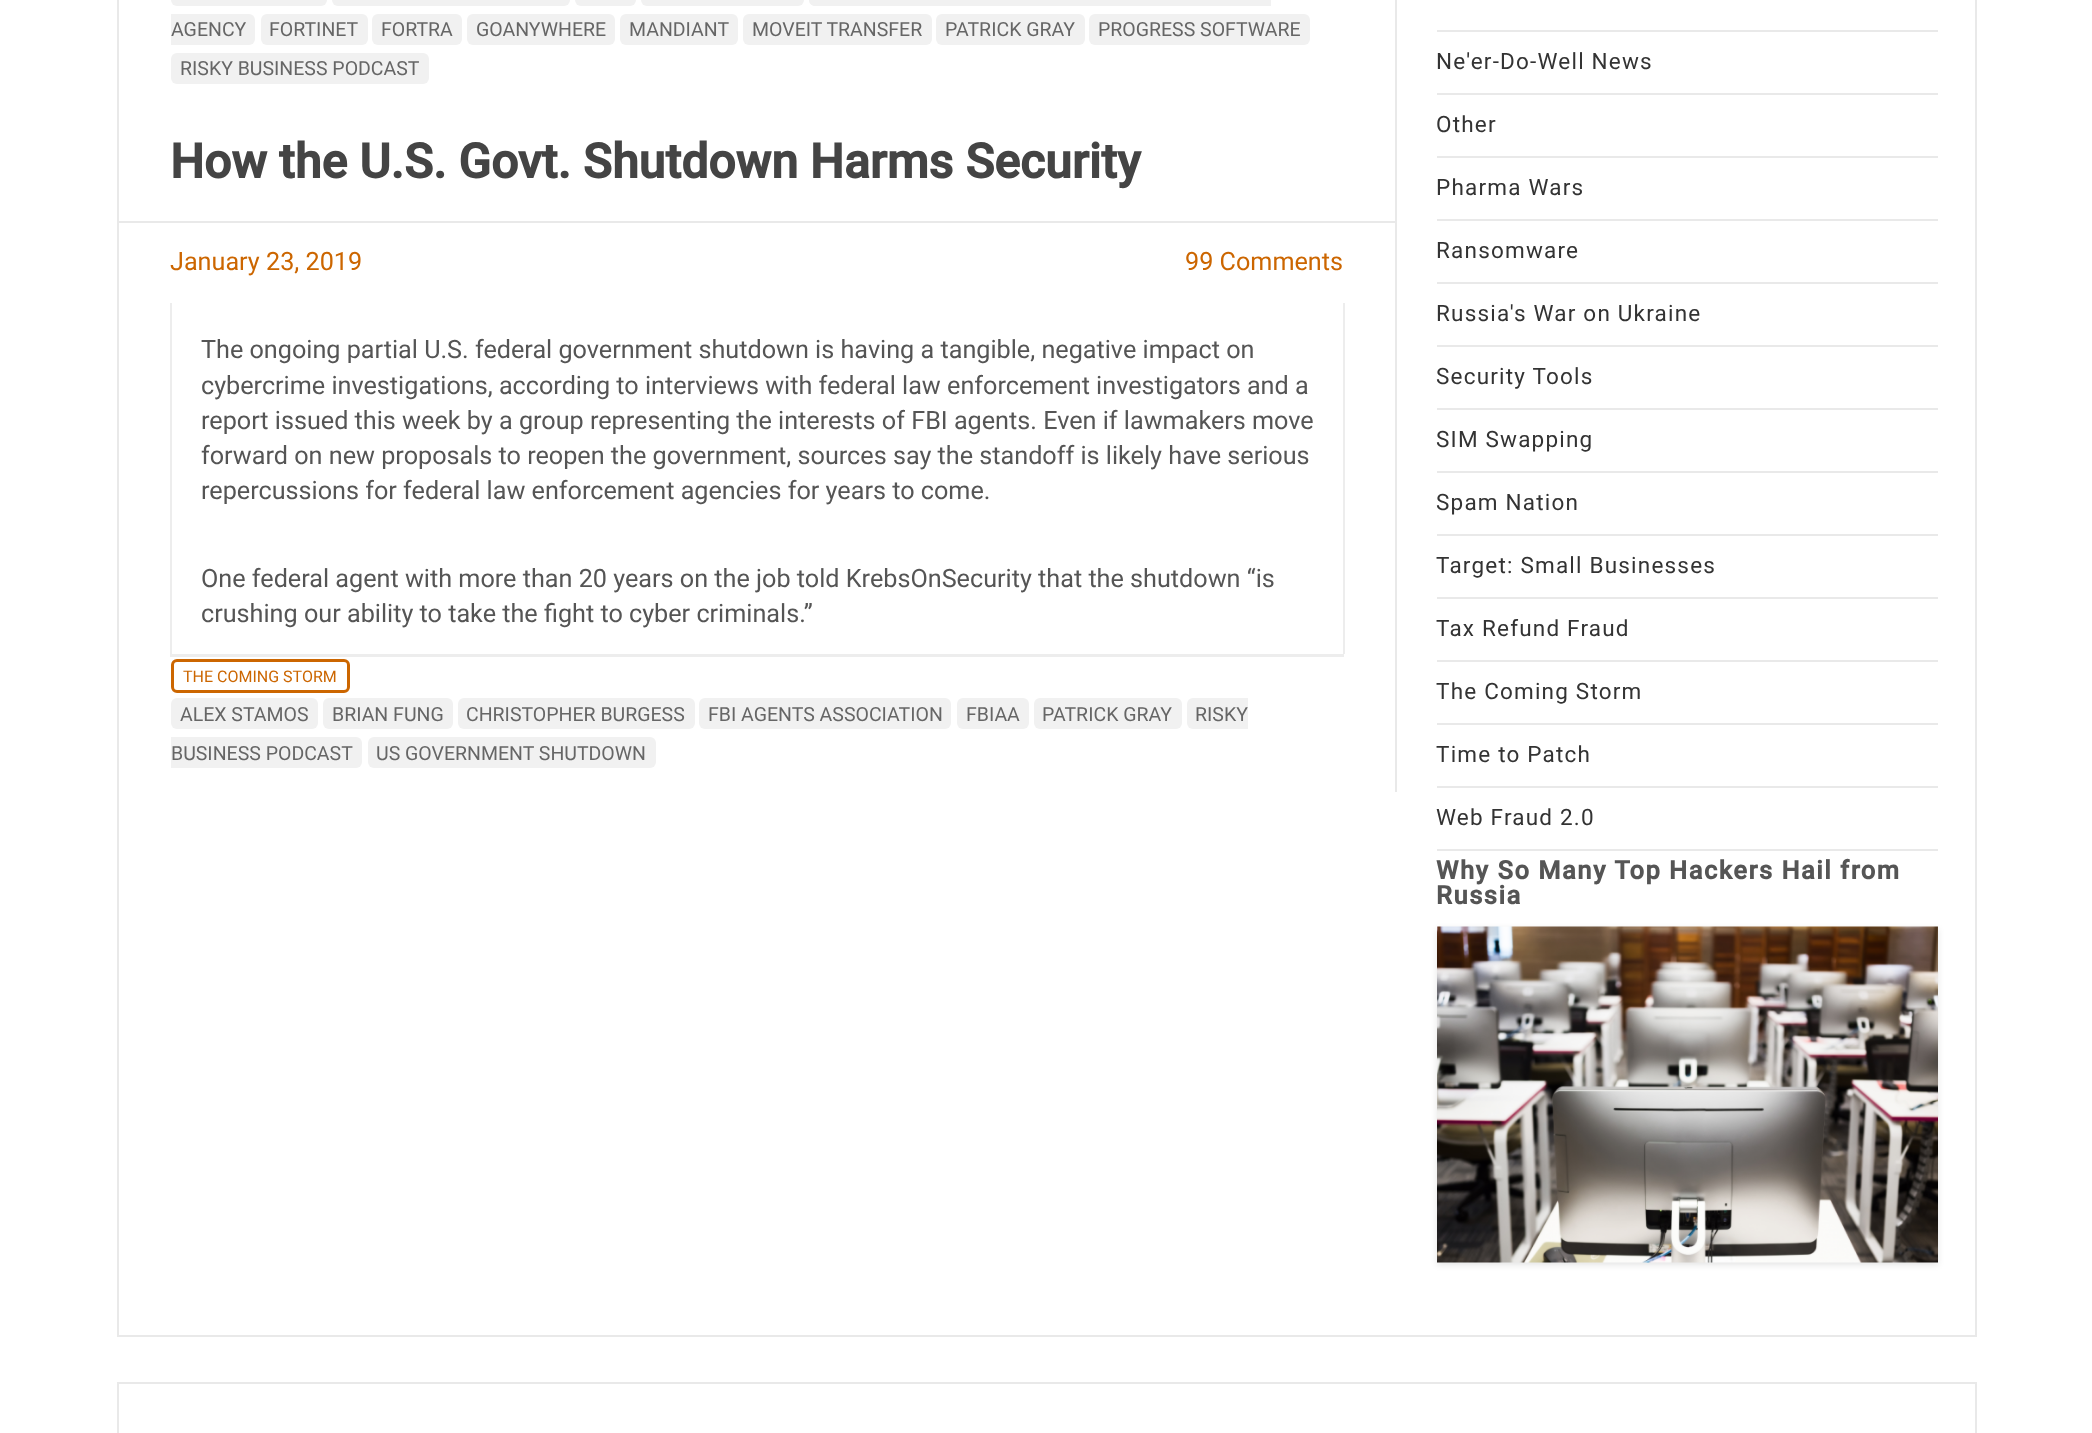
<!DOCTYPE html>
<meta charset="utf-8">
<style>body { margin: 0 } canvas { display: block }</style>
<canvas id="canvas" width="2092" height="1433"></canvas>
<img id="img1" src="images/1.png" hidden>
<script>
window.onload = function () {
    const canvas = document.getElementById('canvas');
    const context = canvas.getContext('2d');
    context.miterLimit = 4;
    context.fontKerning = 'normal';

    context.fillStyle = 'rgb(255, 255, 255)';
    context.fillRect(0, 0, 2092, 1433);
    context.strokeStyle = 'rgb(233, 233, 233)';
    context.lineWidth = 2;
    context.strokeRect(118, -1, 1858, 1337);
    context.fillStyle = 'rgb(233, 233, 233)';
    context.fillRect(1395, 0, 2, 792);
    context.fillStyle = 'rgb(241, 241, 241)';
    context.beginPath();
    context.roundRect(171, -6, 156, 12, 6);
    context.fill();
    context.beginPath();
    context.roundRect(332, -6, 238, 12, 6);
    context.fill();
    context.beginPath();
    context.roundRect(575, -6, 61, 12, 6);
    context.fill();
    context.beginPath();
    context.roundRect(641, -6, 163, 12, 6);
    context.fill();
    context.beginPath();
    context.moveTo(815, -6);
    context.lineTo(1271, -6);
    context.lineTo(1271, 6);
    context.lineTo(815, 6);
    context.bezierCurveTo(811.5, 6, 809, 3.5, 809, 0);
    context.bezierCurveTo(809, -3.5, 811.5, -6, 815, -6);
    context.closePath();
    context.fill();
    context.beginPath();
    context.roundRect(171, 14, 84, 31, [0, 6, 6, 0]);
    context.fill();
    context.beginPath();
    context.roundRect(261, 14, 107, 31, 6);
    context.fill();
    context.beginPath();
    context.roundRect(372, 14, 90, 31, 6);
    context.fill();
    context.beginPath();
    context.roundRect(467, 14, 148, 31, 6);
    context.fill();
    context.beginPath();
    context.roundRect(620, 14, 118, 31, 6);
    context.fill();
    context.beginPath();
    context.roundRect(743, 14, 189, 31, 6);
    context.fill();
    context.beginPath();
    context.roundRect(936, 14, 149, 31, 6);
    context.fill();
    context.beginPath();
    context.roundRect(1089, 14, 221, 31, 6);
    context.fill();
    context.beginPath();
    context.roundRect(171, 53, 258, 31, 6);
    context.fill();
    context.fillStyle = 'rgb(233, 233, 233)';
    context.fillRect(119, 221, 1276, 2);
    context.fillStyle = 'rgb(237, 237, 237)';
    context.fillRect(1343, 303, 2, 351);
    context.fillRect(170, 303, 2, 351);
    context.fillRect(170, 654, 1174, 3);
    context.beginPath();
    context.roundRect(172.5, 660.5, 176, 31, 4.5);
    context.strokeStyle = 'rgb(204, 102, 0)';
    context.lineWidth = 3;
    context.stroke();
    context.fillStyle = 'rgb(241, 241, 241)';
    context.beginPath();
    context.roundRect(171, 698, 147, 31, 6);
    context.fill();
    context.beginPath();
    context.roundRect(323, 698, 130, 31, 6);
    context.fill();
    context.beginPath();
    context.roundRect(458, 698, 237, 31, 6);
    context.fill();
    context.beginPath();
    context.roundRect(699, 698, 252, 31, 6);
    context.fill();
    context.beginPath();
    context.roundRect(957, 698, 72, 31, 6);
    context.fill();
    context.beginPath();
    context.roundRect(1034, 698, 148, 31, 6);
    context.fill();
    context.beginPath();
    context.roundRect(1187, 698, 61, 31, [6, 0, 0, 6]);
    context.fill();
    context.beginPath();
    context.roundRect(171, 737, 191, 31, [0, 6, 6, 0]);
    context.fill();
    context.beginPath();
    context.roundRect(368, 737, 288, 31, 6);
    context.fill();
    context.fillStyle = 'rgb(233, 233, 233)';
    context.fillRect(1437, 30, 501, 2);
    context.fillRect(1437, 93, 501, 2);
    context.fillRect(1437, 156, 501, 2);
    context.fillRect(1437, 219, 501, 2);
    context.fillRect(1437, 282, 501, 2);
    context.fillRect(1437, 345, 501, 2);
    context.fillRect(1437, 408, 501, 2);
    context.fillRect(1437, 471, 501, 2);
    context.fillRect(1437, 534, 501, 2);
    context.fillRect(1437, 597, 501, 2);
    context.fillRect(1437, 660, 501, 2);
    context.fillRect(1437, 723, 501, 2);
    context.fillRect(1437, 786, 501, 2);
    context.fillRect(1437, 849, 501, 2);
    context.fillStyle = 'rgba(0, 0, 0, 0.1)';
    context.filter = 'blur(3px)';
    context.beginPath();
    context.rect(1437, 929, 501, 336);
    context.fill();
    context.filter = 'none';
    context.drawImage(document.getElementById('img1'), 1437, 926, 501, 337);
    context.strokeStyle = 'rgb(233, 233, 233)';
    context.lineWidth = 2;
    context.strokeRect(118, 1383, 1858, 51);
    context.font = '19.5px Roboto';
    context.fillStyle = 'rgb(102, 102, 102)';
    context.fillText('AGENCY', 171, 36);
    context.fillText('FORTINET', 269, 36);
    context.fillText('FORTRA', 381, 36);
    context.fillText('GOANYWHERE', 476, 36);
    context.fillText('MANDIANT', 629, 36);
    context.fillText('MOVEIT TRANSFER', 752, 36);
    context.fillText('PATRICK GRAY', 945, 36);
    context.fillText('PROGRESS SOFTWARE', 1098, 36);
    context.fillText('RISKY BUSINESS PODCAST', 180, 75);
    context.font = 'bold 48px Roboto';
    context.fillStyle = 'rgb(68, 68, 68)';
    context.fillText('How the U.S. Govt. Shutdown Harms Security', 170, 178);
    context.font = '25.2px Roboto';
    context.fillStyle = 'rgb(204, 102, 0)';
    context.fillText('January 23, 2019', 170, 270);
    context.fillText('99 Comments', 1185, 270);
    context.fillStyle = 'rgb(85, 85, 85)';
    context.fillText('The ongoing partial U.S. federal government shutdown is having a tangible, negative impact on', 201, 358);
    context.fillText('cybercrime investigations, according to interviews with federal law enforcement investigators and a', 201, 394);
    context.fillText('report issued this week by a group representing the interests of FBI agents. Even if lawmakers move', 201, 429);
    context.fillText('forward on new proposals to reopen the government, sources say the standoff is likely have serious', 201, 464);
    context.fillText('repercussions for federal law enforcement agencies for years to come.', 201, 499);
    context.fillText('One federal agent with more than 20 years on the job told KrebsOnSecurity that the shutdown “is', 201, 587);
    context.fillText('crushing our ability to take the fight to cyber criminals.”', 201, 622);
    context.font = '16px Roboto';
    context.fillStyle = 'rgb(204, 102, 0)';
    context.fillText('THE COMING STORM', 183, 682);
    context.font = '19.5px Roboto';
    context.fillStyle = 'rgb(102, 102, 102)';
    context.fillText('ALEX STAMOS', 180, 721);
    context.fillText('BRIAN FUNG', 332, 721);
    context.fillText('CHRISTOPHER BURGESS', 466, 721);
    context.fillText('FBI AGENTS ASSOCIATION', 708, 721);
    context.fillText('FBIAA', 966, 721);
    context.fillText('PATRICK GRAY', 1042, 721);
    context.fillText('RISKY', 1195, 721);
    context.fillText('BUSINESS PODCAST', 171, 760);
    context.fillText('US GOVERNMENT SHUTDOWN', 376, 760);
    context.letterSpacing = '1.2px';
    context.font = '22.5px Roboto';
    context.fillStyle = 'rgb(51, 51, 51)';
    context.fillText('Ne\'er-Do-Well News', 1436, 69);
    context.fillText('Other', 1436, 132);
    context.fillText('Pharma Wars', 1436, 195);
    context.fillText('Ransomware', 1436, 258);
    context.fillText('Russia\'s War on Ukraine', 1436, 321);
    context.fillText('Security Tools', 1436, 384);
    context.fillText('SIM Swapping', 1436, 447);
    context.fillText('Spam Nation', 1436, 510);
    context.fillText('Target: Small Businesses', 1436, 573);
    context.fillText('Tax Refund Fraud', 1436, 636);
    context.fillText('The Coming Storm', 1436, 699);
    context.fillText('Time to Patch', 1436, 762);
    context.fillText('Web Fraud 2.0', 1436, 825);
    context.letterSpacing = '1.5px';
    context.font = 'bold 25.5px Roboto';
    context.fillStyle = 'rgb(85, 85, 85)';
    context.fillText('Why So Many Top Hackers Hail from', 1436, 879);
    context.fillText('Russia', 1436, 904);
};
</script>
